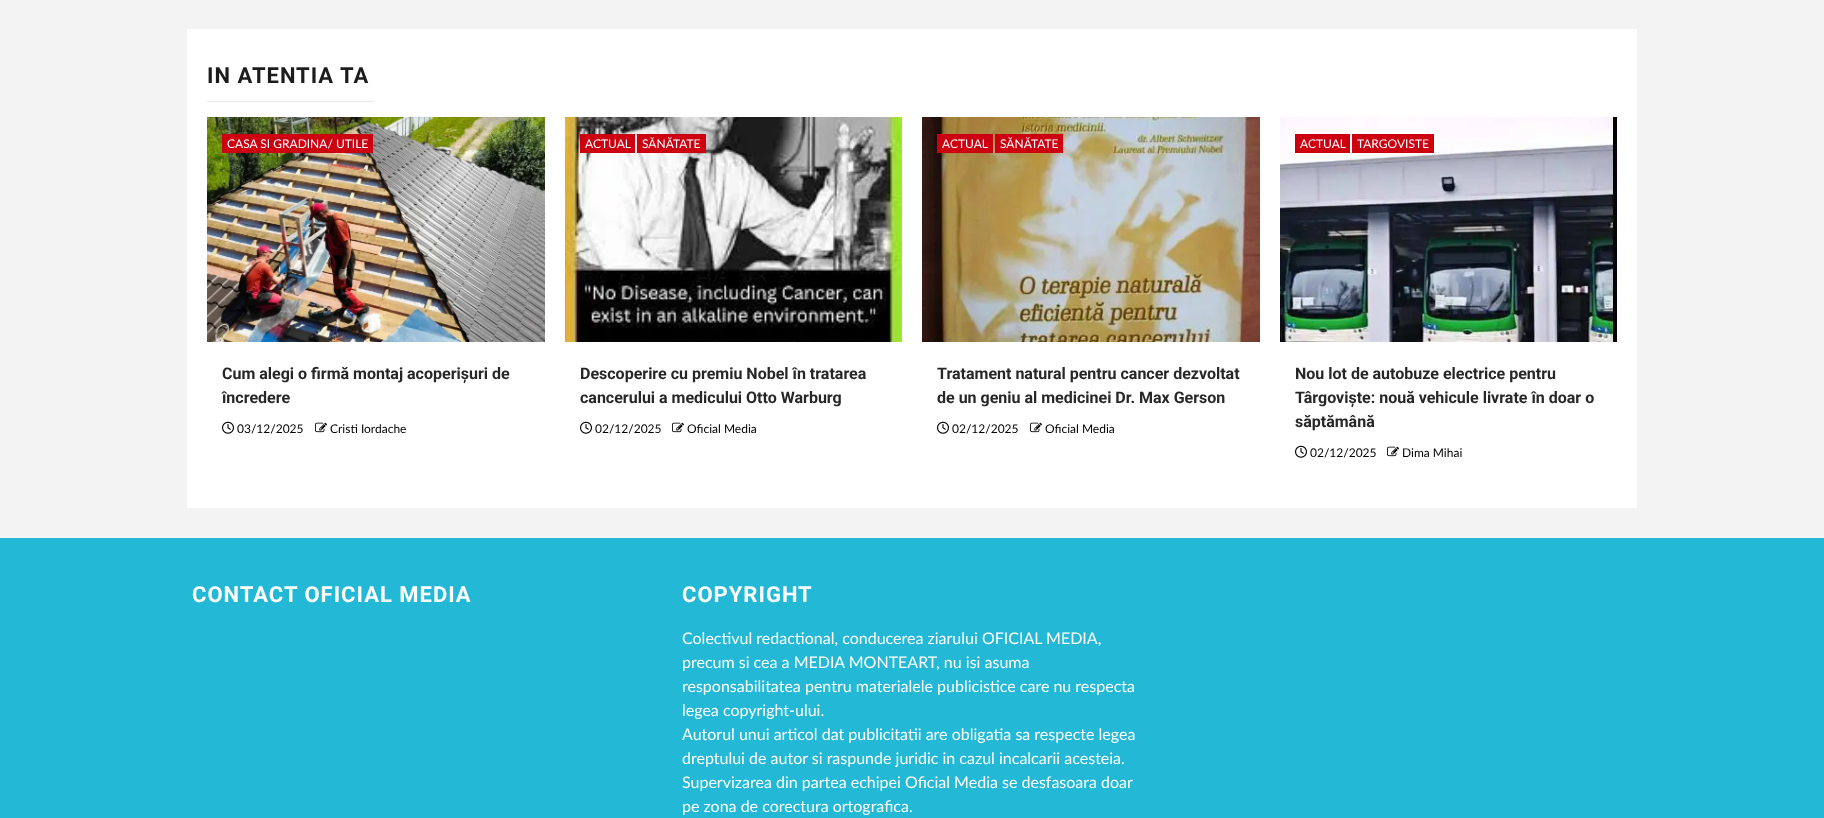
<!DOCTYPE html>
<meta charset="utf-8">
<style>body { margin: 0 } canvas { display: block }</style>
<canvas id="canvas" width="1824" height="818"></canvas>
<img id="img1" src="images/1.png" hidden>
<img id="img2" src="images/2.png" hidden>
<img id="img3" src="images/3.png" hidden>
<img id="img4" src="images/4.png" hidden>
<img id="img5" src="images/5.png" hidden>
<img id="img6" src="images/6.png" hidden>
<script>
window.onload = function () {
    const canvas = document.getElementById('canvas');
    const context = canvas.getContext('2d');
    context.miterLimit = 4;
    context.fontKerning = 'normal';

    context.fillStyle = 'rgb(243, 243, 243)';
    context.fillRect(0, 0, 1824, 818);
    context.fillStyle = 'rgb(255, 255, 255)';
    context.fillRect(187, 29, 1450, 479);
    context.fillStyle = 'rgb(232, 232, 232)';
    context.fillRect(207, 101, 167, 1);
    context.drawImage(document.getElementById('img1'), 207, 117, 338, 225);
    context.fillStyle = 'rgb(204, 0, 16)';
    context.fillRect(222, 134, 151, 19);
    context.drawImage(document.getElementById('img2'), 222, 421, 12, 13);
    context.drawImage(document.getElementById('img3'), 315, 422, 12, 11);
    context.drawImage(document.getElementById('img4'), 565, 117, 337, 225);
    context.fillRect(580, 134, 55, 19);
    context.fillRect(637, 134, 69, 19);
    context.drawImage(document.getElementById('img2'), 580, 421, 12, 13);
    context.drawImage(document.getElementById('img3'), 672, 422, 12, 11);
    context.drawImage(document.getElementById('img5'), 922, 117, 338, 225);
    context.fillRect(937, 134, 56, 19);
    context.fillRect(995, 134, 68, 19);
    context.drawImage(document.getElementById('img2'), 937, 421, 12, 13);
    context.drawImage(document.getElementById('img3'), 1030, 422, 12, 11);
    context.drawImage(document.getElementById('img6'), 1280, 117, 337, 225);
    context.fillRect(1295, 134, 55, 19);
    context.fillRect(1352, 134, 82, 19);
    context.drawImage(document.getElementById('img2'), 1295, 445, 12, 13);
    context.drawImage(document.getElementById('img3'), 1387, 446, 12, 11);
    context.fillStyle = 'rgb(34, 184, 214)';
    context.fillRect(0, 538, 1824, 280);
    context.letterSpacing = '1px';
    context.font = 'bold 22px Roboto';
    context.fillStyle = 'rgb(28, 28, 28)';
    context.fillText('IN ATENTIA TA', 207, 83);
    context.letterSpacing = '0px';
    context.font = '12px Lato';
    context.fillStyle = 'rgb(255, 255, 255)';
    context.fillText('CASA SI GRADINA/ UTILE', 227, 148);
    context.font = 'bold 16px Roboto';
    context.fillStyle = 'rgb(39, 39, 39)';
    context.fillText('Cum alegi o firmă montaj acoperișuri de', 222, 379);
    context.fillText('încredere', 222, 403);
    context.font = '12px Lato';
    context.fillStyle = 'rgb(0, 0, 0)';
    context.fillText('03/12/2025', 237, 433);
    context.fillText('Cristi Iordache', 330, 433);
    context.fillStyle = 'rgb(255, 255, 255)';
    context.fillText('ACTUAL', 585, 148);
    context.fillText('SĂNĂTATE', 642, 148);
    context.font = 'bold 16px Roboto';
    context.fillStyle = 'rgb(39, 39, 39)';
    context.fillText('Descoperire cu premiu Nobel în tratarea', 580, 379);
    context.fillText('cancerului a medicului Otto Warburg', 580, 403);
    context.font = '12px Lato';
    context.fillStyle = 'rgb(0, 0, 0)';
    context.fillText('02/12/2025', 595, 433);
    context.fillText('Oficial Media', 687, 433);
    context.fillStyle = 'rgb(255, 255, 255)';
    context.fillText('ACTUAL', 942, 148);
    context.fillText('SĂNĂTATE', 1000, 148);
    context.font = 'bold 16px Roboto';
    context.fillStyle = 'rgb(39, 39, 39)';
    context.fillText('Tratament natural pentru cancer dezvoltat', 937, 379);
    context.fillText('de un geniu al medicinei Dr. Max Gerson', 937, 403);
    context.font = '12px Lato';
    context.fillStyle = 'rgb(0, 0, 0)';
    context.fillText('02/12/2025', 952, 433);
    context.fillText('Oficial Media', 1045, 433);
    context.fillStyle = 'rgb(255, 255, 255)';
    context.fillText('ACTUAL', 1300, 148);
    context.fillText('TARGOVISTE', 1357, 148);
    context.font = 'bold 16px Roboto';
    context.fillStyle = 'rgb(39, 39, 39)';
    context.fillText('Nou lot de autobuze electrice pentru', 1295, 379);
    context.fillText('Târgoviște: nouă vehicule livrate în doar o', 1295, 403);
    context.fillText('săptămână', 1295, 427);
    context.font = '12px Lato';
    context.fillStyle = 'rgb(0, 0, 0)';
    context.fillText('02/12/2025', 1310, 457);
    context.fillText('Dima Mihai', 1402, 457);
    context.letterSpacing = '1px';
    context.font = 'bold 22px Roboto';
    context.fillStyle = 'rgb(255, 255, 255)';
    context.fillText('CONTACT OFICIAL MEDIA', 192, 602);
    context.fillText('COPYRIGHT', 682, 602);
    context.letterSpacing = '0px';
    context.font = '16px Lato';
    context.fillText('Colectivul redactional, conducerea ziarului OFICIAL MEDIA,', 682, 644);
    context.fillText('precum si cea a MEDIA MONTEART, nu isi asuma', 682, 668);
    context.fillText('responsabilitatea pentru materialele publicistice care nu respecta', 682, 692);
    context.fillText('legea copyright-ului.', 682, 716);
    context.fillText('Autorul unui articol dat publicitatii are obligatia sa respecte legea', 682, 740);
    context.fillText('dreptului de autor si raspunde juridic in cazul incalcarii acesteia.', 682, 764);
    context.fillText('Supervizarea din partea echipei Oficial Media se desfasoara doar', 682, 788);
    context.fillText('pe zona de corectura ortografica.', 682, 812);
};
</script>
